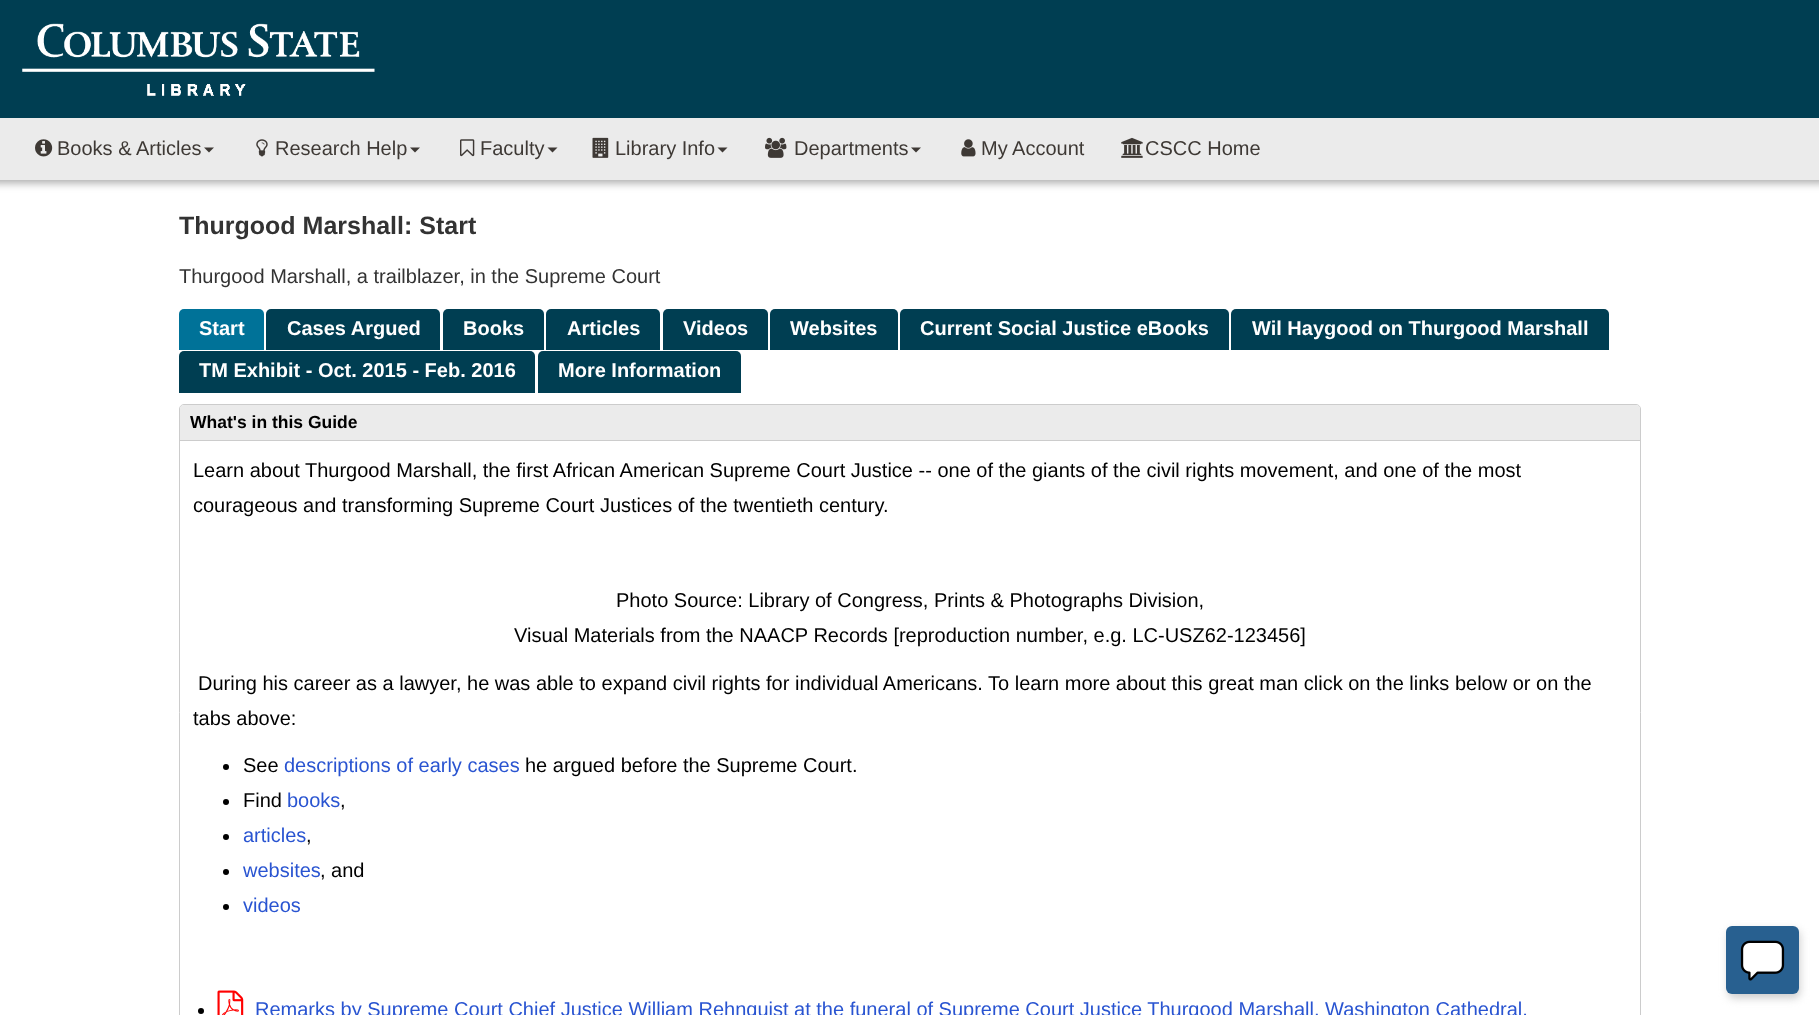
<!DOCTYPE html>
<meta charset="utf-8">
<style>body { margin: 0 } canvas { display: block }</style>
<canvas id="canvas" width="1819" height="1015"></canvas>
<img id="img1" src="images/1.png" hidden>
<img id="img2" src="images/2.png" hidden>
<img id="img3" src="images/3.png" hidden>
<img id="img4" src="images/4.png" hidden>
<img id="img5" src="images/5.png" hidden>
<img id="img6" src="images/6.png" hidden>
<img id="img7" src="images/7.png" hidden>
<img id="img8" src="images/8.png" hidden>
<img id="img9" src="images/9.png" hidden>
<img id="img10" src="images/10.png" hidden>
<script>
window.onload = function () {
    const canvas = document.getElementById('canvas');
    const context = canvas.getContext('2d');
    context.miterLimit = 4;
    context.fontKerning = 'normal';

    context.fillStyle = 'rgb(255, 255, 255)';
    context.fillRect(0, 0, 1819, 1015);
    context.fillStyle = 'rgb(0, 62, 82)';
    context.fillRect(0, 0, 1819, 118);
    context.drawImage(document.getElementById('img1'), 22, 23, 353, 73);
    context.fillStyle = 'rgb(170, 170, 170)';
    context.filter = 'blur(4px)';
    context.beginPath();
    context.rect(-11, 135, 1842, 48);
    context.fill();
    context.filter = 'none';
    context.fillStyle = 'rgb(235, 235, 235)';
    context.fillRect(0, 118, 1819, 62);
    context.drawImage(document.getElementById('img2'), 35, 139, 18, 18);
    context.fillStyle = 'rgb(62, 57, 53)';
    context.beginPath();
    context.moveTo(204, 147.5);
    context.lineTo(214, 147.5);
    context.lineTo(209, 152.5);
    context.closePath();
    context.fill();
    context.drawImage(document.getElementById('img3'), 256, 139, 12, 18);
    context.beginPath();
    context.moveTo(410, 147.5);
    context.lineTo(420, 147.5);
    context.lineTo(415, 152.5);
    context.closePath();
    context.fill();
    context.drawImage(document.getElementById('img4'), 460, 139, 15, 18);
    context.beginPath();
    context.moveTo(547.5, 147.5);
    context.lineTo(557.5, 147.5);
    context.lineTo(552.5, 152.5);
    context.closePath();
    context.fill();
    context.drawImage(document.getElementById('img5'), 592, 137, 17, 21);
    context.beginPath();
    context.moveTo(717.5, 147.5);
    context.lineTo(727.5, 147.5);
    context.lineTo(722.5, 152.5);
    context.closePath();
    context.fill();
    context.drawImage(document.getElementById('img6'), 765, 137, 22, 21);
    context.beginPath();
    context.moveTo(911, 147.5);
    context.lineTo(921, 147.5);
    context.lineTo(916, 152.5);
    context.closePath();
    context.fill();
    context.drawImage(document.getElementById('img7'), 961, 139, 15, 18);
    context.drawImage(document.getElementById('img8'), 1121, 137, 22, 21);
    context.fillStyle = 'rgb(0, 114, 152)';
    context.beginPath();
    context.roundRect(179, 309, 85, 41, [5, 5, 0, 0]);
    context.fill();
    context.fillStyle = 'rgb(0, 62, 82)';
    context.beginPath();
    context.roundRect(266, 309, 174, 41, [5, 5, 0, 0]);
    context.fill();
    context.beginPath();
    context.roundRect(443, 309, 101, 41, [5, 5, 0, 0]);
    context.fill();
    context.beginPath();
    context.roundRect(546, 309, 114, 41, [5, 5, 0, 0]);
    context.fill();
    context.beginPath();
    context.roundRect(663, 309, 105, 41, [5, 5, 0, 0]);
    context.fill();
    context.beginPath();
    context.roundRect(770, 309, 128, 41, [5, 5, 0, 0]);
    context.fill();
    context.beginPath();
    context.roundRect(900, 309, 329, 41, [5, 5, 0, 0]);
    context.fill();
    context.beginPath();
    context.roundRect(1231, 309, 378, 41, [5, 5, 0, 0]);
    context.fill();
    context.beginPath();
    context.roundRect(179, 351, 356, 42, [5, 5, 0, 0]);
    context.fill();
    context.beginPath();
    context.roundRect(538, 351, 203, 42, [5, 5, 0, 0]);
    context.fill();
    context.beginPath();
    context.roundRect(179.5, 404.5, 1461, 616, 4.5);
    context.strokeStyle = 'rgb(204, 204, 204)';
    context.stroke();
    context.fillStyle = 'rgb(235, 235, 235)';
    context.beginPath();
    context.roundRect(180, 405, 1460, 36, [4, 4, 0, 0]);
    context.fill();
    context.fillStyle = 'rgb(204, 204, 204)';
    context.fillRect(180, 440, 1460, 1);
    context.fillStyle = 'rgb(0, 0, 0)';
    context.beginPath();
    context.arc(226, 767, 3, 0, 2 * Math.PI);
    context.fill();
    context.beginPath();
    context.arc(226, 802, 3, 0, 2 * Math.PI);
    context.fill();
    context.beginPath();
    context.arc(226, 837, 3, 0, 2 * Math.PI);
    context.fill();
    context.beginPath();
    context.arc(226, 872, 3, 0, 2 * Math.PI);
    context.fill();
    context.beginPath();
    context.arc(226, 907, 3, 0, 2 * Math.PI);
    context.fill();
    context.beginPath();
    context.arc(201, 1011, 3, 0, 2 * Math.PI);
    context.fill();
    context.drawImage(document.getElementById('img9'), 217, 990, 27, 25);
    context.fillStyle = 'rgb(204, 204, 204)';
    context.filter = 'blur(4.5px)';
    context.beginPath();
    context.roundRect(1728, 930, 72, 68, 6);
    context.fill();
    context.filter = 'none';
    context.fillStyle = 'rgb(40, 96, 144)';
    context.beginPath();
    context.roundRect(1726, 926, 73, 68, 6);
    context.fill();
    context.drawImage(document.getElementById('img10'), 1740, 940, 45, 41);
    context.font = '20px Liberation Sans';
    context.fillStyle = 'rgb(62, 57, 53)';
    context.fillText('Books & Articles', 57, 155);
    context.fillText('Research Help', 275, 155);
    context.fillText('Faculty', 480, 155);
    context.fillText('Library Info', 615, 155);
    context.fillText('Departments', 794, 155);
    context.fillText('My Account', 981, 155);
    context.fillText('CSCC Home', 1145, 155);
    context.font = 'bold 25px Liberation Sans';
    context.fillStyle = 'rgb(51, 51, 51)';
    context.fillText('Thurgood Marshall: Start', 179, 234);
    context.font = '20px Liberation Sans';
    context.fillText('Thurgood Marshall, a trailblazer, in the Supreme Court', 179, 283);
    context.font = 'bold 20px Liberation Sans';
    context.fillStyle = 'rgb(255, 255, 255)';
    context.fillText('Start', 199, 335);
    context.fillText('Cases Argued', 287, 335);
    context.fillText('Books', 463, 335);
    context.fillText('Articles', 567, 335);
    context.fillText('Videos', 683, 335);
    context.fillText('Websites', 790, 335);
    context.fillText('Current Social Justice eBooks', 920, 335);
    context.fillText('Wil Haygood on Thurgood Marshall', 1252, 335);
    context.fillText('TM Exhibit - Oct. 2015 - Feb. 2016', 199, 377);
    context.fillText('More Information', 558, 377);
    context.font = 'bold 17.5px Liberation Sans';
    context.fillStyle = 'rgb(0, 0, 0)';
    context.fillText('What\'s in this Guide', 190, 428);
    context.font = '20px Liberation Sans';
    context.fillText('Learn about Thurgood Marshall, the first African American Supreme Court Justice -- one of the giants of the civil rights movement, and one of the most', 193, 477);
    context.fillText('courageous and transforming Supreme Court Justices of the twentieth century.', 193, 512);
    context.fillText('Photo Source: Library of Congress, Prints & Photographs Division,', 616, 607);
    context.fillText('Visual Materials from the NAACP Records [reproduction number, e.g. LC-USZ62-123456]', 514, 642);
    context.fillText('During his career as a lawyer, he was able to expand civil rights for individual Americans. To learn more about this great man click on the links below or on the', 198, 690);
    context.fillText('tabs above:', 193, 725);
    context.fillText('See', 243, 772);
    context.fillStyle = 'rgb(41, 84, 209)';
    context.fillText('descriptions of early cases', 284, 772);
    context.fillStyle = 'rgb(0, 0, 0)';
    context.fillText('he argued before the Supreme Court.', 525, 772);
    context.fillText('Find', 243, 807);
    context.fillStyle = 'rgb(41, 84, 209)';
    context.fillText('books', 287, 807);
    context.fillStyle = 'rgb(0, 0, 0)';
    context.fillText(',', 340, 807);
    context.fillStyle = 'rgb(41, 84, 209)';
    context.fillText('articles', 243, 842);
    context.fillStyle = 'rgb(0, 0, 0)';
    context.fillText(',', 306, 842);
    context.fillStyle = 'rgb(41, 84, 209)';
    context.fillText('websites', 243, 877);
    context.fillStyle = 'rgb(0, 0, 0)';
    context.fillText(', and', 320, 877);
    context.fillStyle = 'rgb(41, 84, 209)';
    context.fillText('videos', 243, 912);
    context.fillText('Remarks by Supreme Court Chief Justice William Rehnquist at the funeral of Supreme Court Justice Thurgood Marshall, Washington Cathedral,', 255, 1016);
};
</script>
